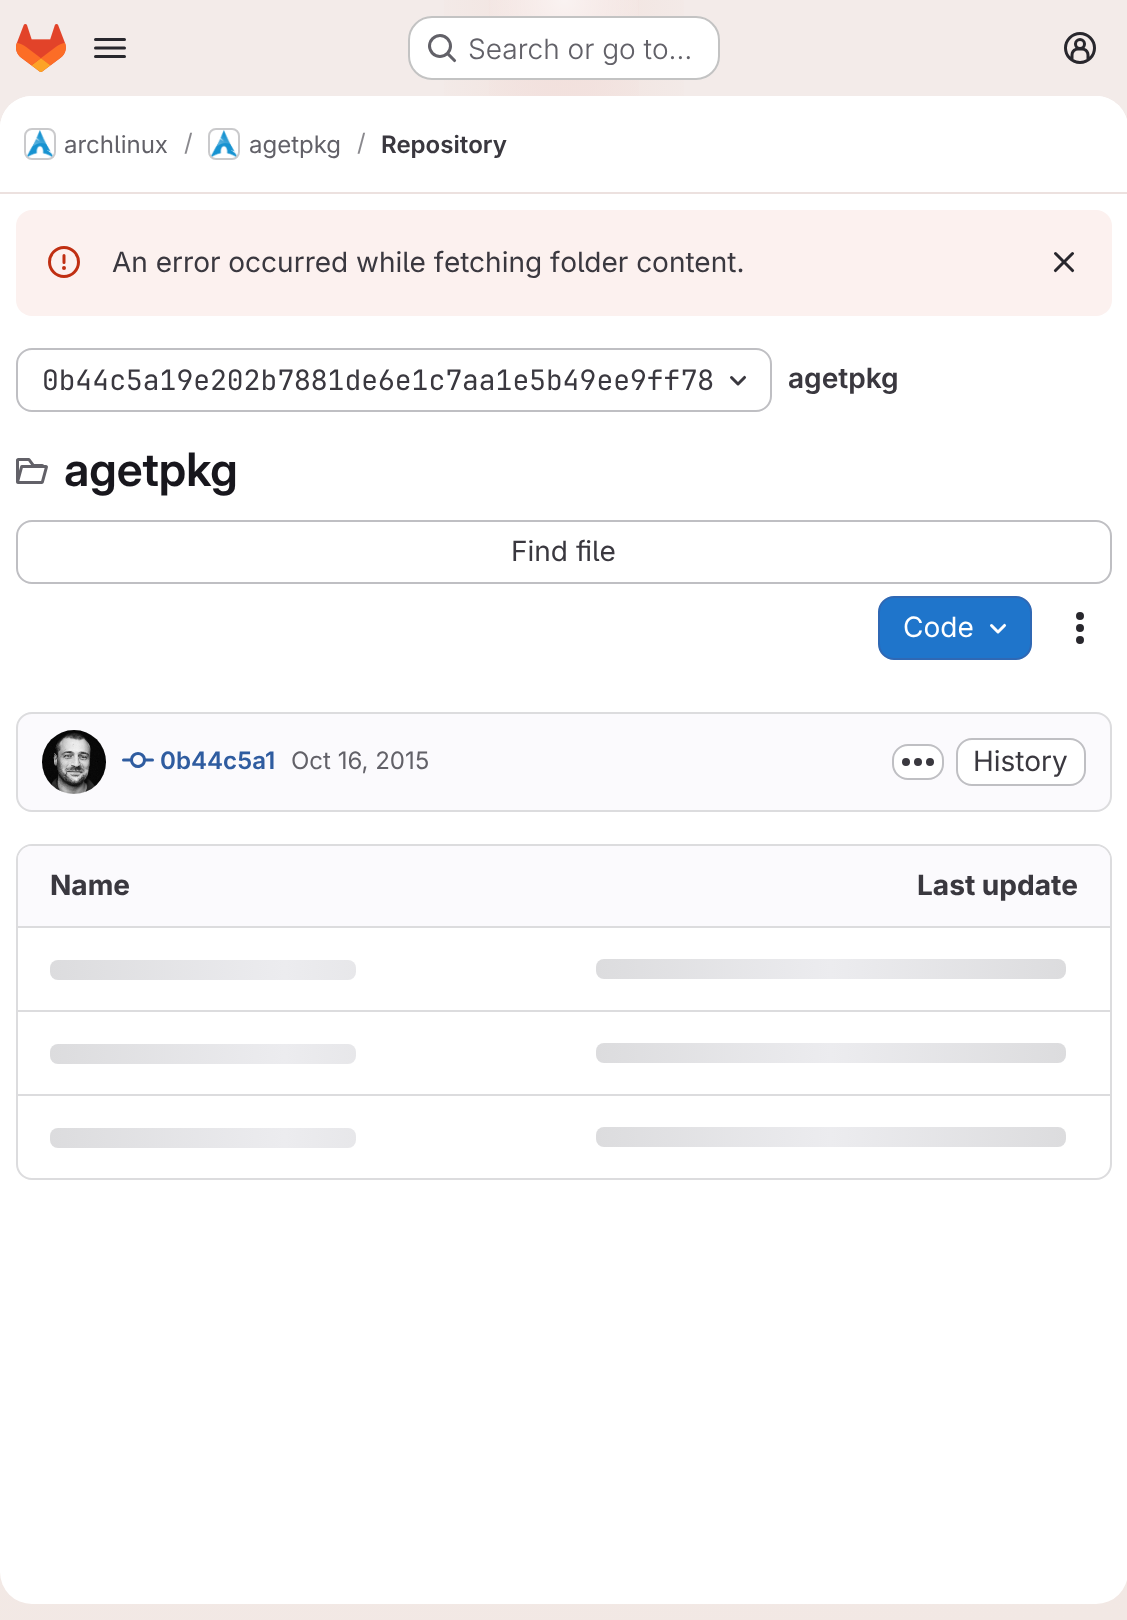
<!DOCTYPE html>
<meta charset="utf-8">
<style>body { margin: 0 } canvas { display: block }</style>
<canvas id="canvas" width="1127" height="1620"></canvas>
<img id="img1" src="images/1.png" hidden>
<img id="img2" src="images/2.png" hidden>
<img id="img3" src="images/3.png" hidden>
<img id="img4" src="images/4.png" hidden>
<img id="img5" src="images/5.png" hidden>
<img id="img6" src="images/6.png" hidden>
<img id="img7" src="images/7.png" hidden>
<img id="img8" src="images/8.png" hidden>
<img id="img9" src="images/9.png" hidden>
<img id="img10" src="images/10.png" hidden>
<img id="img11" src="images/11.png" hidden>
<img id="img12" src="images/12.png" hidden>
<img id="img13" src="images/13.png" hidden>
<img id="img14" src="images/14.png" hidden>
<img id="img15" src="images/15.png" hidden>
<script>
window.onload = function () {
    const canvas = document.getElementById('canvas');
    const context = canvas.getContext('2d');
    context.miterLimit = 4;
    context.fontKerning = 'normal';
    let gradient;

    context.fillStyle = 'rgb(255, 255, 255)';
    context.fillRect(0, 0, 1127, 1620);
    gradient = context.createLinearGradient(720, 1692, 408, -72);
    gradient.addColorStop(0, 'rgb(242, 232, 228)');
    gradient.addColorStop(0.7, 'rgb(243, 235, 233)');
    context.fillStyle = gradient;
    context.fillRect(0, 0, 1127, 1620);
    gradient = context.createRadialGradient(564, 0, 0, 564, 0, 564);
    gradient.addColorStop(0, 'rgb(242, 226, 221)');
    gradient.addColorStop(0.25, 'rgba(242, 226, 221, 0)');
    context.fillStyle = gradient;
    context.beginPath();
    context.rect(444, 0, 240, 96);
    context.save();
    context.clip();
    context.scale(1, 1620 / 564);
    context.fillRect(0, 0, 1127, 564);
    context.restore();
    gradient = context.createRadialGradient(564, 0, 0, 564, 0, 564);
    gradient.addColorStop(0, 'rgb(242, 224, 221)');
    gradient.addColorStop(0.18, 'rgba(242, 224, 221, 0)');
    context.fillStyle = gradient;
    context.beginPath();
    context.rect(489, 0, 150, 96);
    context.save();
    context.clip();
    context.scale(1, 1620 / 564);
    context.fillRect(0, 0, 1127, 564);
    context.restore();
    gradient = context.createRadialGradient(564, 0, 0, 564, 0, 1715);
    gradient.addColorStop(0, 'rgba(255, 255, 255, 0.6)');
    gradient.addColorStop(0.05, 'rgba(255, 255, 255, 0)');
    context.fillStyle = gradient;
    context.fillRect(490, 0, 148, 16);
    context.drawImage(document.getElementById('img1'), 16, 24, 50, 48);
    context.drawImage(document.getElementById('img2'), 94, 38, 32, 20);
    context.fillStyle = 'rgb(255, 255, 255)';
    context.beginPath();
    context.roundRect(408, 16, 312, 64, 24);
    context.fill();
    context.beginPath();
    context.roundRect(409, 17, 310, 62, 23);
    context.strokeStyle = 'rgba(5, 5, 6, 0.24)';
    context.lineWidth = 2;
    context.stroke();
    context.drawImage(document.getElementById('img3'), 428, 34, 29, 29);
    context.drawImage(document.getElementById('img4'), 1064, 32, 32, 32);
    context.beginPath();
    context.roundRect(0, 96, 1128, 1508, 32);
    context.fill();
    context.beginPath();
    context.moveTo(32, 96);
    context.lineTo(1096, 96);
    context.bezierCurveTo(1113.5, 96, 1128, 110.5, 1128, 128);
    context.lineTo(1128, 194);
    context.lineTo(0, 194);
    context.lineTo(0, 128);
    context.bezierCurveTo(0, 110.5, 14.5, 96, 32, 96);
    context.closePath();
    context.fill();
    context.fillStyle = 'rgb(236, 225, 223)';
    context.fillRect(0, 192, 1127, 2);
    context.beginPath();
    context.roundRect(25, 129, 30, 30, 7);
    context.strokeStyle = 'rgb(220, 220, 222)';
    context.stroke();
    context.drawImage(document.getElementById('img5'), 27, 130, 26, 27);
    context.beginPath();
    context.roundRect(25, 129, 30, 30, 7);
    context.strokeStyle = 'rgba(5, 5, 6, 0.08)';
    context.stroke();
    context.beginPath();
    context.roundRect(209, 129, 30, 30, 7);
    context.strokeStyle = 'rgb(220, 220, 222)';
    context.stroke();
    context.drawImage(document.getElementById('img6'), 211, 130, 26, 27);
    context.beginPath();
    context.roundRect(209, 129, 30, 30, 7);
    context.strokeStyle = 'rgba(5, 5, 6, 0.08)';
    context.stroke();
    context.fillStyle = 'rgb(252, 241, 239)';
    context.beginPath();
    context.roundRect(16, 210, 1096, 106, 16);
    context.fill();
    context.drawImage(document.getElementById('img7'), 48, 246, 32, 32);
    context.drawImage(document.getElementById('img8'), 1053, 252, 22, 21);
    context.beginPath();
    context.roundRect(17, 349, 754, 62, 15);
    context.strokeStyle = 'rgb(191, 191, 195)';
    context.stroke();
    context.drawImage(document.getElementById('img9'), 730, 375, 17, 11);
    context.drawImage(document.getElementById('img10'), 16, 458, 32, 26);
    context.beginPath();
    context.roundRect(17, 521, 1094, 62, 15);
    context.stroke();
    context.fillStyle = 'rgb(31, 117, 203)';
    context.beginPath();
    context.roundRect(879, 597, 152, 62, 15);
    context.fill();
    context.strokeStyle = 'rgb(47, 104, 180)';
    context.stroke();
    context.drawImage(document.getElementById('img11'), 990, 623, 17, 11);
    context.drawImage(document.getElementById('img12'), 1076, 612, 8, 32);
    context.fillStyle = 'rgb(251, 250, 253)';
    context.beginPath();
    context.roundRect(17, 713, 1094, 98, 15);
    context.fill();
    context.strokeStyle = 'rgb(220, 220, 222)';
    context.stroke();
    context.drawImage(document.getElementById('img13'), 42, 730, 64, 64);
    context.beginPath();
    context.arc(74, 762, 31, 0, 2 * Math.PI);
    context.strokeStyle = 'rgba(5, 5, 6, 0.08)';
    context.stroke();
    context.drawImage(document.getElementById('img14'), 122, 752, 32, 16);
    context.fillStyle = 'rgb(255, 255, 255)';
    context.beginPath();
    context.roundRect(893, 745, 50, 34, 15);
    context.fill();
    context.strokeStyle = 'rgb(191, 191, 195)';
    context.stroke();
    context.drawImage(document.getElementById('img15'), 902, 758, 32, 8);
    context.beginPath();
    context.roundRect(957, 739, 128, 46, 15);
    context.fill();
    context.stroke();
    context.beginPath();
    context.roundRect(17, 845, 1094, 334, 15);
    context.strokeStyle = 'rgb(220, 220, 222)';
    context.stroke();
    context.fillStyle = 'rgb(251, 250, 253)';
    context.beginPath();
    context.roundRect(18, 846, 546, 80, [14, 0, 0, 0]);
    context.fill();
    context.beginPath();
    context.roundRect(564, 846, 546, 80, [0, 14, 0, 0]);
    context.fill();
    context.fillStyle = 'rgb(220, 220, 222)';
    context.fillRect(18, 926, 1092, 2);
    gradient = context.createLinearGradient(596, 959, 1066, 959);
    gradient.addColorStop(0, 'rgb(220, 220, 222)');
    gradient.addColorStop(0.5, 'rgb(236, 236, 239)');
    gradient.addColorStop(1, 'rgb(220, 220, 222)');
    context.fillStyle = gradient;
    context.beginPath();
    context.roundRect(596, 959, 470, 20, 8);
    context.fill();
    gradient = context.createLinearGradient(50, 960, 520, 960);
    gradient.addColorStop(0, 'rgb(220, 220, 222)');
    gradient.addColorStop(0.5, 'rgb(236, 236, 239)');
    gradient.addColorStop(1, 'rgb(220, 220, 222)');
    context.fillStyle = gradient;
    context.beginPath();
    context.roundRect(50, 960, 306, 20, 8);
    context.fill();
    context.fillStyle = 'rgb(220, 220, 222)';
    context.fillRect(18, 1010, 1092, 2);
    gradient = context.createLinearGradient(596, 1043, 1066, 1043);
    gradient.addColorStop(0, 'rgb(220, 220, 222)');
    gradient.addColorStop(0.5, 'rgb(236, 236, 239)');
    gradient.addColorStop(1, 'rgb(220, 220, 222)');
    context.fillStyle = gradient;
    context.beginPath();
    context.roundRect(596, 1043, 470, 20, 8);
    context.fill();
    gradient = context.createLinearGradient(50, 1044, 520, 1044);
    gradient.addColorStop(0, 'rgb(220, 220, 222)');
    gradient.addColorStop(0.5, 'rgb(236, 236, 239)');
    gradient.addColorStop(1, 'rgb(220, 220, 222)');
    context.fillStyle = gradient;
    context.beginPath();
    context.roundRect(50, 1044, 306, 20, 8);
    context.fill();
    context.fillStyle = 'rgb(220, 220, 222)';
    context.fillRect(18, 1094, 1092, 2);
    gradient = context.createLinearGradient(596, 1127, 1066, 1127);
    gradient.addColorStop(0, 'rgb(220, 220, 222)');
    gradient.addColorStop(0.5, 'rgb(236, 236, 239)');
    gradient.addColorStop(1, 'rgb(220, 220, 222)');
    context.fillStyle = gradient;
    context.beginPath();
    context.roundRect(596, 1127, 470, 20, 8);
    context.fill();
    gradient = context.createLinearGradient(50, 1128, 520, 1128);
    gradient.addColorStop(0, 'rgb(220, 220, 222)');
    gradient.addColorStop(0.5, 'rgb(236, 236, 239)');
    gradient.addColorStop(1, 'rgb(220, 220, 222)');
    context.fillStyle = gradient;
    context.beginPath();
    context.roundRect(50, 1128, 306, 20, 8);
    context.fill();
    context.font = '300 28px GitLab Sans';
    context.fillStyle = 'rgb(98, 97, 104)';
    context.fillText('Search or go to…', 468, 59);
    context.font = '24px GitLab Sans';
    context.fillText('archlinux', 64, 153);
    context.fillStyle = 'rgb(137, 136, 141)';
    context.fillText('/', 184, 151);
    context.fillStyle = 'rgb(98, 97, 104)';
    context.fillText('agetpkg', 249, 153);
    context.fillStyle = 'rgb(137, 136, 141)';
    context.fillText('/', 357, 151);
    context.font = '600 24px "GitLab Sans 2"';
    context.fillStyle = 'rgb(58, 56, 63)';
    context.fillText('Repository', 381, 153);
    context.font = '28px GitLab Sans';
    context.fillText('An error occurred while fetching folder content.', 112, 272);
    context.font = '28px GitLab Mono';
    context.fillText('0b44c5a19e202b7881de6e1c7aa1e5b49ee9ff78', 42, 390);
    context.save();
    context.beginPath();
    context.roundRect(788, 360, 110, 34, 8);
    context.clip();
    context.font = '600 28px "GitLab Sans 2"';
    context.fillText('agetpkg', 788, 388);
    context.restore();
    context.font = '600 46px GitLab Sans';
    context.fillStyle = 'rgb(24, 23, 29)';
    context.fillText('agetpkg', 64, 486);
    context.font = '28px GitLab Sans';
    context.fillStyle = 'rgb(58, 56, 63)';
    context.fillText('Find file', 511, 561);
    context.fillStyle = 'rgb(255, 255, 255)';
    context.fillText('Code', 903, 637);
    context.font = '600 24px "GitLab Sans 2"';
    context.fillStyle = 'rgb(47, 92, 160)';
    context.fillText('0b44c5a1', 160, 769);
    context.font = '24px GitLab Sans';
    context.fillStyle = 'rgb(98, 97, 104)';
    context.fillText('Oct 16, 2015', 291, 769);
    context.font = '28px GitLab Sans';
    context.fillStyle = 'rgb(58, 56, 63)';
    context.fillText('History', 973, 771);
    context.font = 'bold 28px GitLab Sans';
    context.fillText('Name', 50, 895);
    context.fillText('Last update', 917, 895);
};
</script>
